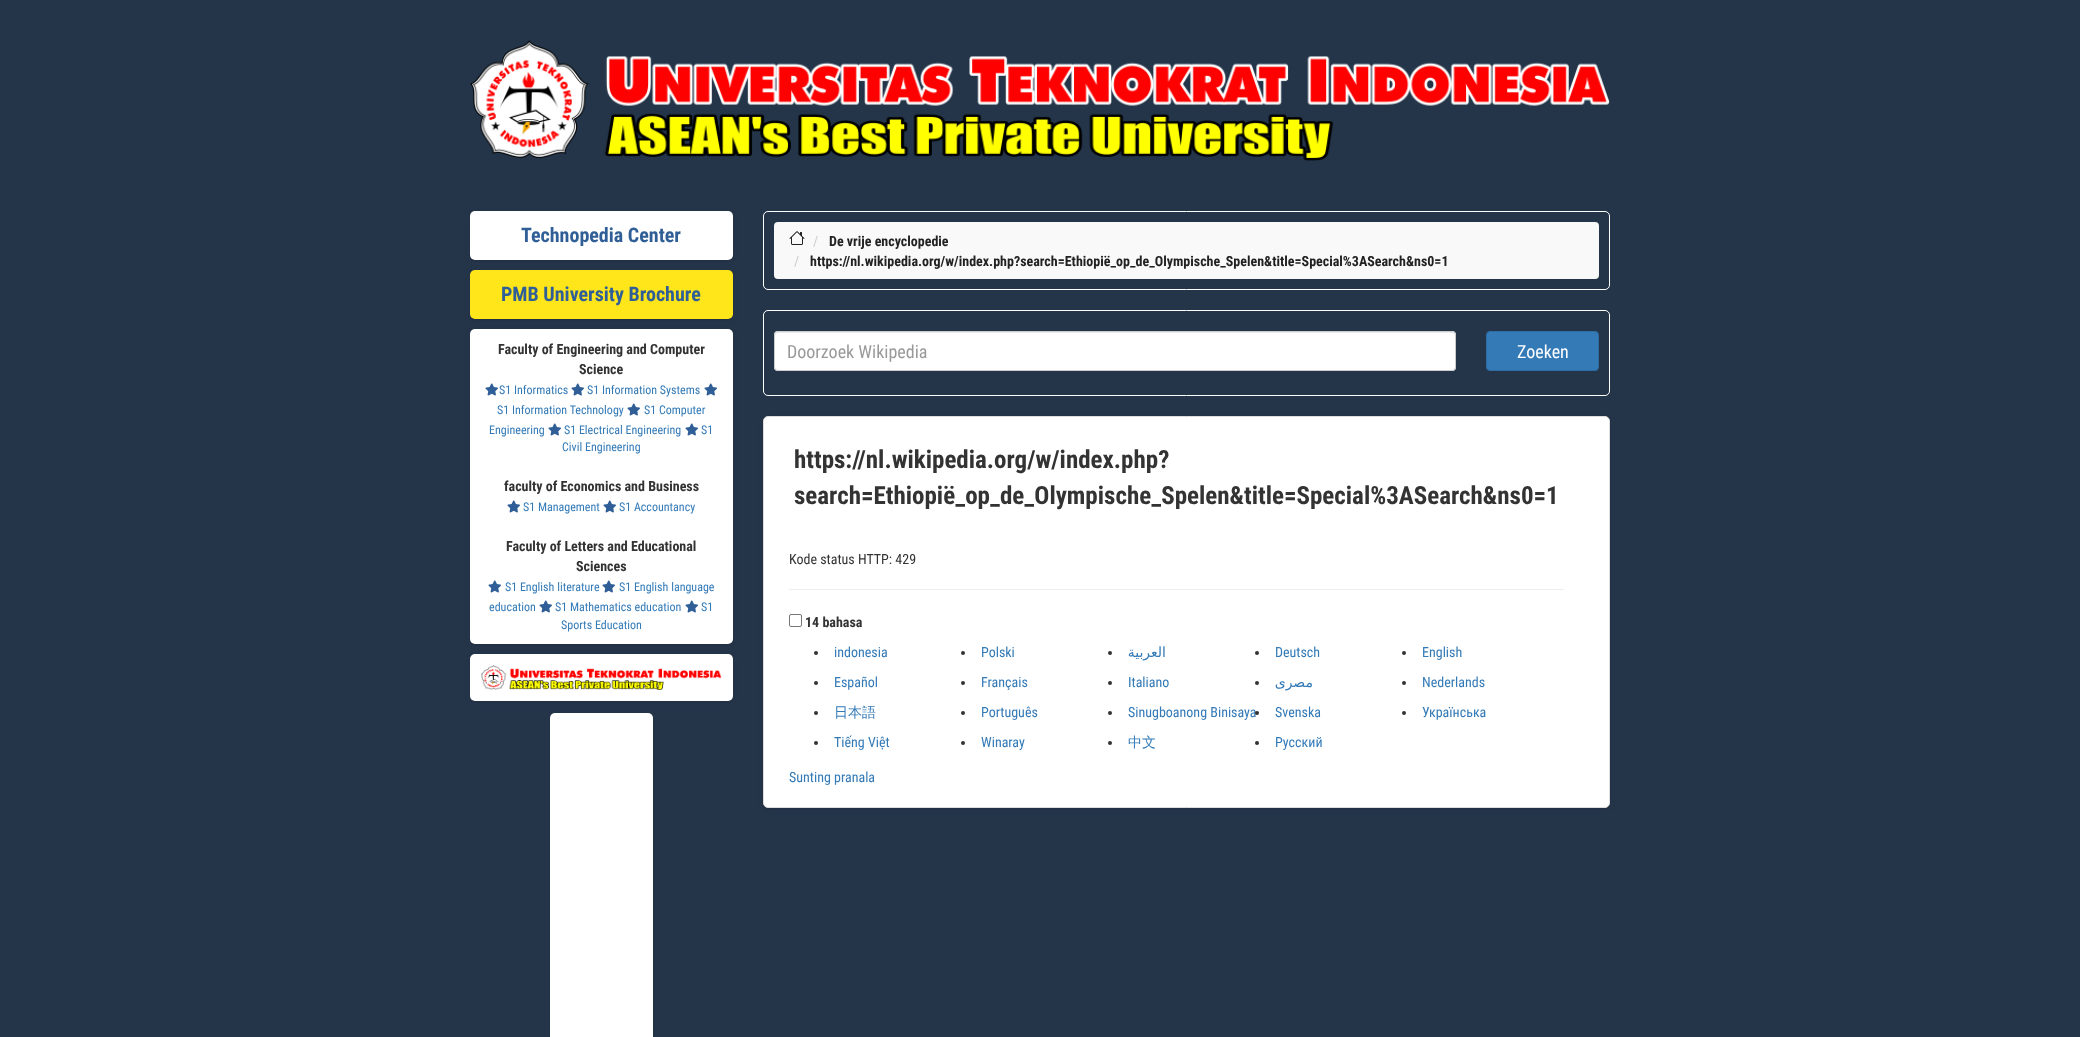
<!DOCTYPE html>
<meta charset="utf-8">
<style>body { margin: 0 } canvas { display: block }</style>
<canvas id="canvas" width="2080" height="1037"></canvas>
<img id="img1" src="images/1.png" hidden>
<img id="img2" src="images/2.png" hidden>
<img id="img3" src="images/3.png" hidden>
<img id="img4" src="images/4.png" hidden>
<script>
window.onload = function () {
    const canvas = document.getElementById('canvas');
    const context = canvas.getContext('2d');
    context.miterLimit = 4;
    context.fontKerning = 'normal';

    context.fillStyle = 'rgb(36, 53, 73)';
    context.fillRect(0, 0, 2080, 1037);
    context.drawImage(document.getElementById('img1'), 470, 40, 1140, 121);
    context.fillStyle = 'rgba(0, 0, 0, 0.3)';
    context.filter = 'blur(1.5px)';
    context.beginPath();
    context.roundRect(471, 213, 261, 47, 4);
    context.fill();
    context.filter = 'none';
    context.fillStyle = 'rgba(50, 50, 93, 0.25)';
    context.filter = 'blur(2.5px)';
    context.beginPath();
    context.roundRect(471, 214, 261, 47, 4);
    context.fill();
    context.filter = 'none';
    context.fillStyle = 'rgb(255, 255, 255)';
    context.beginPath();
    context.roundRect(470, 211, 263, 49, 5);
    context.fill();
    context.fillStyle = 'rgba(0, 0, 0, 0.3)';
    context.filter = 'blur(1.5px)';
    context.beginPath();
    context.roundRect(471, 272, 261, 47, 4);
    context.fill();
    context.filter = 'none';
    context.fillStyle = 'rgba(50, 50, 93, 0.25)';
    context.filter = 'blur(2.5px)';
    context.beginPath();
    context.roundRect(471, 273, 261, 47, 4);
    context.fill();
    context.filter = 'none';
    context.fillStyle = 'rgb(255, 230, 27)';
    context.beginPath();
    context.roundRect(470, 270, 263, 49, 5);
    context.fill();
    context.fillStyle = 'rgba(0, 0, 0, 0.3)';
    context.filter = 'blur(1.5px)';
    context.beginPath();
    context.roundRect(471, 331, 261, 313, 4);
    context.fill();
    context.filter = 'none';
    context.fillStyle = 'rgba(50, 50, 93, 0.25)';
    context.filter = 'blur(2.5px)';
    context.beginPath();
    context.roundRect(471, 332, 261, 313, 4);
    context.fill();
    context.filter = 'none';
    context.fillStyle = 'rgb(255, 255, 255)';
    context.beginPath();
    context.roundRect(470, 329, 263, 315, 5);
    context.fill();
    context.drawImage(document.getElementById('img2'), 485, 383, 13, 13);
    context.drawImage(document.getElementById('img2'), 571, 383, 13, 13);
    context.drawImage(document.getElementById('img2'), 704, 383, 13, 13);
    context.drawImage(document.getElementById('img2'), 627, 403, 13, 13);
    context.drawImage(document.getElementById('img2'), 685, 423, 13, 13);
    context.drawImage(document.getElementById('img2'), 548, 423, 13, 13);
    context.drawImage(document.getElementById('img2'), 507, 500, 13, 13);
    context.drawImage(document.getElementById('img2'), 603, 500, 13, 13);
    context.drawImage(document.getElementById('img2'), 602, 580, 13, 13);
    context.drawImage(document.getElementById('img2'), 488, 580, 13, 13);
    context.drawImage(document.getElementById('img2'), 539, 600, 13, 13);
    context.drawImage(document.getElementById('img2'), 685, 600, 13, 13);
    context.fillStyle = 'rgba(0, 0, 0, 0.3)';
    context.filter = 'blur(1.5px)';
    context.beginPath();
    context.roundRect(471, 656, 261, 45, 4);
    context.fill();
    context.filter = 'none';
    context.fillStyle = 'rgba(50, 50, 93, 0.25)';
    context.filter = 'blur(2.5px)';
    context.beginPath();
    context.roundRect(471, 657, 261, 45, 4);
    context.fill();
    context.filter = 'none';
    context.fillStyle = 'rgb(255, 255, 255)';
    context.beginPath();
    context.roundRect(470, 654, 263, 47, 5);
    context.fill();
    context.drawImage(document.getElementById('img3'), 481, 665, 241, 25);
    context.fillStyle = 'rgba(0, 0, 0, 0.3)';
    context.filter = 'blur(1.5px)';
    context.beginPath();
    context.roundRect(551, 715, 101, 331, 4);
    context.fill();
    context.filter = 'none';
    context.fillStyle = 'rgb(255, 255, 255)';
    context.beginPath();
    context.roundRect(550, 713, 103, 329, 5);
    context.fill();
    context.beginPath();
    context.roundRect(763.5, 211.5, 846, 78, 4.5);
    context.strokeStyle = 'rgb(255, 255, 255)';
    context.stroke();
    context.fillStyle = 'rgb(250, 249, 249)';
    context.beginPath();
    context.roundRect(774, 222, 825, 57, 4);
    context.fill();
    context.drawImage(document.getElementById('img4'), 789, 231, 16, 14);
    context.beginPath();
    context.roundRect(763.5, 310.5, 846, 85, 4.5);
    context.stroke();
    context.fillStyle = 'rgb(255, 255, 255)';
    context.beginPath();
    context.roundRect(774, 331, 682, 40, 4);
    context.fill();
    context.fillStyle = 'rgb(236, 236, 236)';
    context.beginPath();
    context.moveTo(778, 333);
    context.lineTo(1452, 333);
    context.bezierCurveTo(1454, 333, 1455, 334, 1455, 336);
    context.lineTo(1455, 335);
    context.bezierCurveTo(1455, 333, 1454, 332, 1452, 332);
    context.lineTo(778, 332);
    context.bezierCurveTo(776, 332, 775, 333, 775, 335);
    context.lineTo(775, 336);
    context.bezierCurveTo(775, 334, 776, 333, 778, 333);
    context.closePath();
    context.fill();
    context.beginPath();
    context.roundRect(774.5, 331.5, 681, 39, 3.5);
    context.strokeStyle = 'rgb(204, 204, 204)';
    context.stroke();
    context.fillStyle = 'rgb(51, 122, 183)';
    context.beginPath();
    context.roundRect(1486.5, 331.5, 112, 39, 3.5);
    context.fill();
    context.strokeStyle = 'rgb(46, 109, 164)';
    context.stroke();
    context.fillStyle = 'rgba(0, 0, 0, 0.3)';
    context.filter = 'blur(1.5px)';
    context.beginPath();
    context.roundRect(764, 418, 845, 390, 4);
    context.fill();
    context.filter = 'none';
    context.fillStyle = 'rgba(50, 50, 93, 0.25)';
    context.filter = 'blur(2.5px)';
    context.beginPath();
    context.roundRect(764, 419, 845, 390, 4);
    context.fill();
    context.filter = 'none';
    context.fillStyle = 'rgb(255, 255, 255)';
    context.beginPath();
    context.roundRect(763.5, 416.5, 846, 391, 4.5);
    context.fill();
    context.strokeStyle = 'rgb(221, 221, 221)';
    context.stroke();
    context.fillStyle = 'rgb(238, 238, 238)';
    context.fillRect(789, 589, 775, 1);
    context.beginPath();
    context.roundRect(789.5, 614.5, 12, 12, 1.5);
    context.strokeStyle = 'rgb(118, 118, 118)';
    context.stroke();
    context.fillStyle = 'rgb(51, 51, 51)';
    context.beginPath();
    context.arc(816, 653, 2, 0, 2 * Math.PI);
    context.fill();
    context.beginPath();
    context.arc(963, 653, 2, 0, 2 * Math.PI);
    context.fill();
    context.beginPath();
    context.arc(1110, 653, 2, 0, 2 * Math.PI);
    context.fill();
    context.beginPath();
    context.arc(1257, 653, 2, 0, 2 * Math.PI);
    context.fill();
    context.beginPath();
    context.arc(1404, 653, 2, 0, 2 * Math.PI);
    context.fill();
    context.beginPath();
    context.arc(816, 683, 2, 0, 2 * Math.PI);
    context.fill();
    context.beginPath();
    context.arc(963, 683, 2, 0, 2 * Math.PI);
    context.fill();
    context.beginPath();
    context.arc(1110, 683, 2, 0, 2 * Math.PI);
    context.fill();
    context.beginPath();
    context.arc(1257, 683, 2, 0, 2 * Math.PI);
    context.fill();
    context.beginPath();
    context.arc(1404, 683, 2, 0, 2 * Math.PI);
    context.fill();
    context.beginPath();
    context.arc(816, 713, 2, 0, 2 * Math.PI);
    context.fill();
    context.beginPath();
    context.arc(963, 713, 2, 0, 2 * Math.PI);
    context.fill();
    context.beginPath();
    context.arc(1110, 713, 2, 0, 2 * Math.PI);
    context.fill();
    context.beginPath();
    context.arc(1404, 713, 2, 0, 2 * Math.PI);
    context.fill();
    context.beginPath();
    context.arc(816, 743, 2, 0, 2 * Math.PI);
    context.fill();
    context.beginPath();
    context.arc(963, 743, 2, 0, 2 * Math.PI);
    context.fill();
    context.beginPath();
    context.arc(1110, 743, 2, 0, 2 * Math.PI);
    context.fill();
    context.beginPath();
    context.arc(1257, 743, 2, 0, 2 * Math.PI);
    context.fill();
    context.font = 'bold 20px Roboto Condensed';
    context.fillStyle = 'rgb(48, 95, 151)';
    context.fillText('Technopedia Center', 521, 242);
    context.fillText('PMB University Brochure', 501, 301);
    context.font = 'bold 14px Roboto Condensed';
    context.fillStyle = 'rgb(51, 51, 51)';
    context.fillText('Faculty of Engineering and Computer', 498, 354);
    context.fillText('Science', 579, 374);
    context.font = '12px Roboto Condensed';
    context.fillStyle = 'rgb(51, 122, 183)';
    context.fillText('S1 Informatics', 499, 394);
    context.fillText('S1 Information Systems', 587, 394);
    context.fillText('S1 Information Technology', 497, 414);
    context.fillText('S1 Computer', 644, 414);
    context.fillText('Engineering', 489, 434);
    context.fillText('S1', 701, 434);
    context.fillText('Civil Engineering', 562, 451);
    context.fillText('S1 Electrical Engineering', 564, 434);
    context.font = 'bold 14px Roboto Condensed';
    context.fillStyle = 'rgb(51, 51, 51)';
    context.fillText('faculty of Economics and Business', 504, 491);
    context.font = '12px Roboto Condensed';
    context.fillStyle = 'rgb(51, 122, 183)';
    context.fillText('S1 Management', 523, 511);
    context.fillText('S1 Accountancy', 619, 511);
    context.font = 'bold 14px Roboto Condensed';
    context.fillStyle = 'rgb(51, 51, 51)';
    context.fillText('Faculty of Letters and Educational', 506, 551);
    context.fillText('Sciences', 576, 571);
    context.font = '12px Roboto Condensed';
    context.fillStyle = 'rgb(51, 122, 183)';
    context.fillText('S1 English language', 619, 591);
    context.fillText('education', 489, 611);
    context.fillText('S1 English literature', 505, 591);
    context.fillText('S1 Mathematics education', 555, 611);
    context.fillText('S1', 701, 611);
    context.fillText('Sports Education', 561, 629);
    context.font = '14px Roboto Condensed';
    context.fillStyle = 'rgb(204, 204, 204)';
    context.fillText('/', 813, 246);
    context.font = 'bold 14px Roboto Condensed';
    context.fillStyle = 'rgb(34, 34, 34)';
    context.fillText('De vrije encyclopedie', 829, 246);
    context.font = '14px Roboto Condensed';
    context.fillStyle = 'rgb(204, 204, 204)';
    context.fillText('/', 794, 266);
    context.font = 'bold 14px Roboto Condensed';
    context.fillStyle = 'rgb(34, 34, 34)';
    context.fillText('https://nl.wikipedia.org/w/index.php?search=Ethiopië_op_de_Olympische_Spelen&title=Special%3ASearch&ns0=1', 810, 266);
    context.font = '18px Roboto Condensed';
    context.fillStyle = 'rgb(153, 153, 153)';
    context.fillText('Doorzoek Wikipedia', 787, 358);
    context.fillStyle = 'rgb(255, 255, 255)';
    context.fillText('Zoeken', 1517, 358);
    context.font = 'bold 25px Roboto Condensed';
    context.fillStyle = 'rgb(51, 51, 51)';
    context.fillText('https://nl.wikipedia.org/w/index.php?', 794, 468);
    context.fillText('search=Ethiopië_op_de_Olympische_Spelen&title=Special%3ASearch&ns0=1', 794, 504);
    context.font = '14px Roboto Condensed';
    context.fillText('Kode status HTTP: 429', 789, 564);
    context.font = 'bold 14px Roboto Condensed';
    context.fillText('14 bahasa', 805, 627);
    context.font = '14px Roboto Condensed';
    context.fillStyle = 'rgb(51, 122, 183)';
    context.fillText('indonesia', 834, 657);
    context.fillText('Polski', 981, 657);
    context.direction = 'rtl';
    context.font = '14px DejaVu Sans';
    context.fillText('العربية', 1166, 657);
    context.direction = 'ltr';
    context.font = '14px Roboto Condensed';
    context.fillText('Deutsch', 1275, 657);
    context.fillText('English', 1422, 657);
    context.fillText('Español', 834, 687);
    context.fillText('Français', 981, 687);
    context.fillText('Italiano', 1128, 687);
    context.direction = 'rtl';
    context.font = '14px DejaVu Sans';
    context.fillText('مصرى', 1313, 687);
    context.direction = 'ltr';
    context.font = '14px Roboto Condensed';
    context.fillText('Nederlands', 1422, 687);
    context.font = '500 14px WenQuanYi Zen Hei';
    context.fillText('日本語', 834, 717);
    context.font = '14px Roboto Condensed';
    context.fillText('Português', 981, 717);
    context.fillText('Sinugboanong Binisaya', 1128, 717);
    context.fillStyle = 'rgb(51, 51, 51)';
    context.beginPath();
    context.arc(1257, 713, 2, 0, 2 * Math.PI);
    context.fill();
    context.fillStyle = 'rgb(51, 122, 183)';
    context.fillText('Svenska', 1275, 717);
    context.fillText('Українська', 1422, 717);
    context.fillText('Tiếng Việt', 834, 747);
    context.fillText('Winaray', 981, 747);
    context.font = '500 14px WenQuanYi Zen Hei';
    context.fillText('中文', 1128, 747);
    context.font = '14px Roboto Condensed';
    context.fillText('Русский', 1275, 747);
    context.fillText('Sunting pranala', 789, 782);
};
</script>
